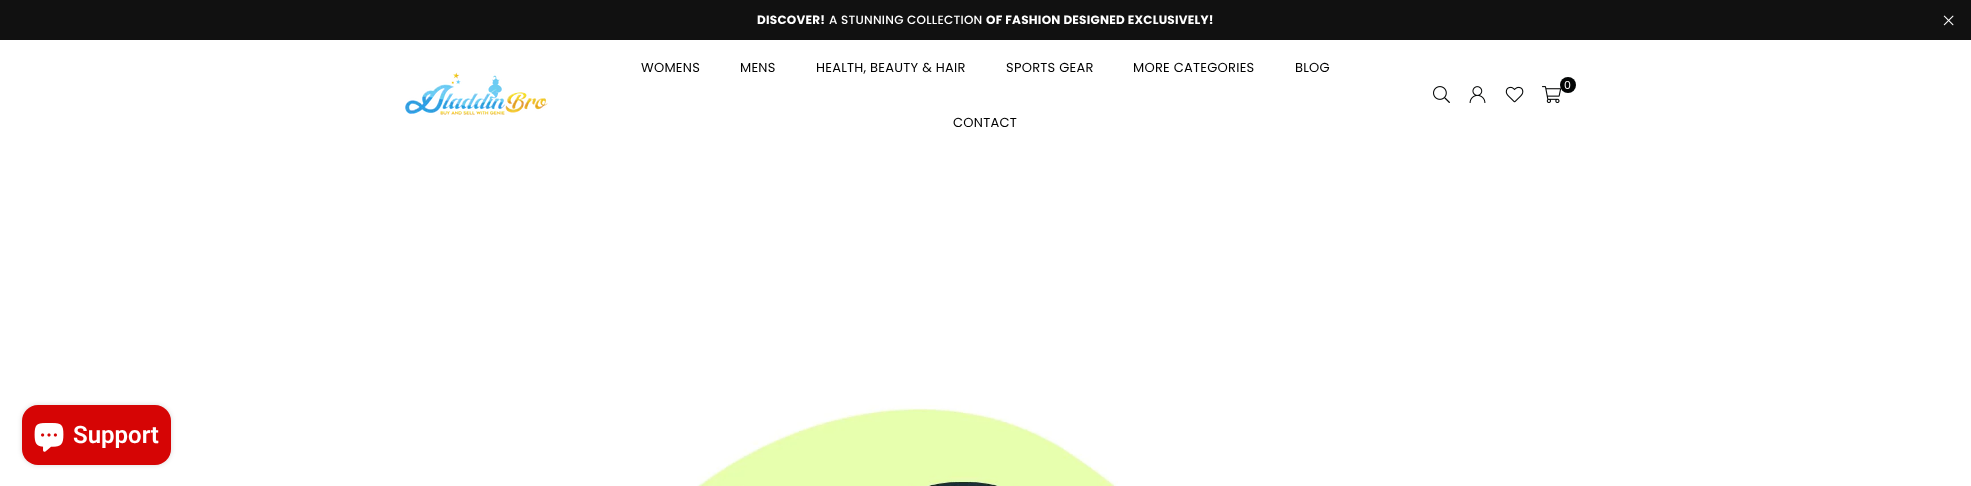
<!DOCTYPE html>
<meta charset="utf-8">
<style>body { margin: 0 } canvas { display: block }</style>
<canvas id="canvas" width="1971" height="486"></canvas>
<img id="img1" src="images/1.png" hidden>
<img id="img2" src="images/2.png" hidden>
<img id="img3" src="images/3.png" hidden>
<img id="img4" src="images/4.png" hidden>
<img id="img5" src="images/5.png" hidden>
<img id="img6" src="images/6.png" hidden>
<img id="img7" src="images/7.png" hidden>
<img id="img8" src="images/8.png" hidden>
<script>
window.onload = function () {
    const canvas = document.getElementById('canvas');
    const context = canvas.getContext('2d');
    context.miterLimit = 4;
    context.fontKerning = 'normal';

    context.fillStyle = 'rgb(255, 255, 255)';
    context.fillRect(0, 0, 1971, 486);
    context.fillStyle = 'rgb(17, 17, 17)';
    context.fillRect(0, 0, 1971, 40);
    context.drawImage(document.getElementById('img1'), 1943, 15, 11, 11);
    context.drawImage(document.getElementById('img2'), 405, 72, 143, 43);
    context.drawImage(document.getElementById('img3'), 1542, 86, 20, 17);
    context.fillStyle = 'rgb(3, 5, 5)';
    context.beginPath();
    context.arc(1568, 85, 8, 0, 2 * Math.PI);
    context.fill();
    context.drawImage(document.getElementById('img4'), 1433, 86, 17, 17);
    context.drawImage(document.getElementById('img5'), 1469, 86, 17, 17);
    context.drawImage(document.getElementById('img6'), 1505, 86, 19, 17);
    context.fillStyle = 'rgba(0, 0, 0, 0.15)';
    context.filter = 'blur(2.5px)';
    context.beginPath();
    context.roundRect(22, 405, 149, 60, 16);
    context.fill();
    context.filter = 'none';
    context.fillStyle = 'rgb(214, 5, 5)';
    context.beginPath();
    context.roundRect(22, 405, 149, 60, 16);
    context.fill();
    context.drawImage(document.getElementById('img7'), 34, 423, 30, 29);
    context.drawImage(document.getElementById('img8'), 697, 405, 421, 81);
    context.letterSpacing = '0.25px';
    context.font = 'bold 12px Poppins';
    context.fillStyle = 'rgb(255, 255, 255)';
    context.fillText('DISCOVER!', 757, 24);
    context.font = '500 12px Poppins';
    context.fillText('A STUNNING COLLECTION', 829, 24);
    context.font = 'bold 12px Poppins';
    context.fillText('OF FASHION DESIGNED EXCLUSIVELY!', 986, 24);
    context.font = '13px Poppins';
    context.fillStyle = 'rgb(0, 0, 0)';
    context.fillText('WOMENS', 641, 72);
    context.fillText('MENS', 740, 72);
    context.fillText('HEALTH, BEAUTY & HAIR', 816, 72);
    context.fillText('SPORTS GEAR', 1006, 72);
    context.fillText('MORE CATEGORIES', 1133, 72);
    context.fillText('BLOG', 1295, 72);
    context.fillText('CONTACT', 953, 127);
    context.font = '11px Poppins';
    context.fillStyle = 'rgb(255, 255, 255)';
    context.fillText('0', 1564, 89);
    context.letterSpacing = '0px';
    context.font = '600 24px Roboto';
    context.fillText('Support', 73, 443);
};
</script>
